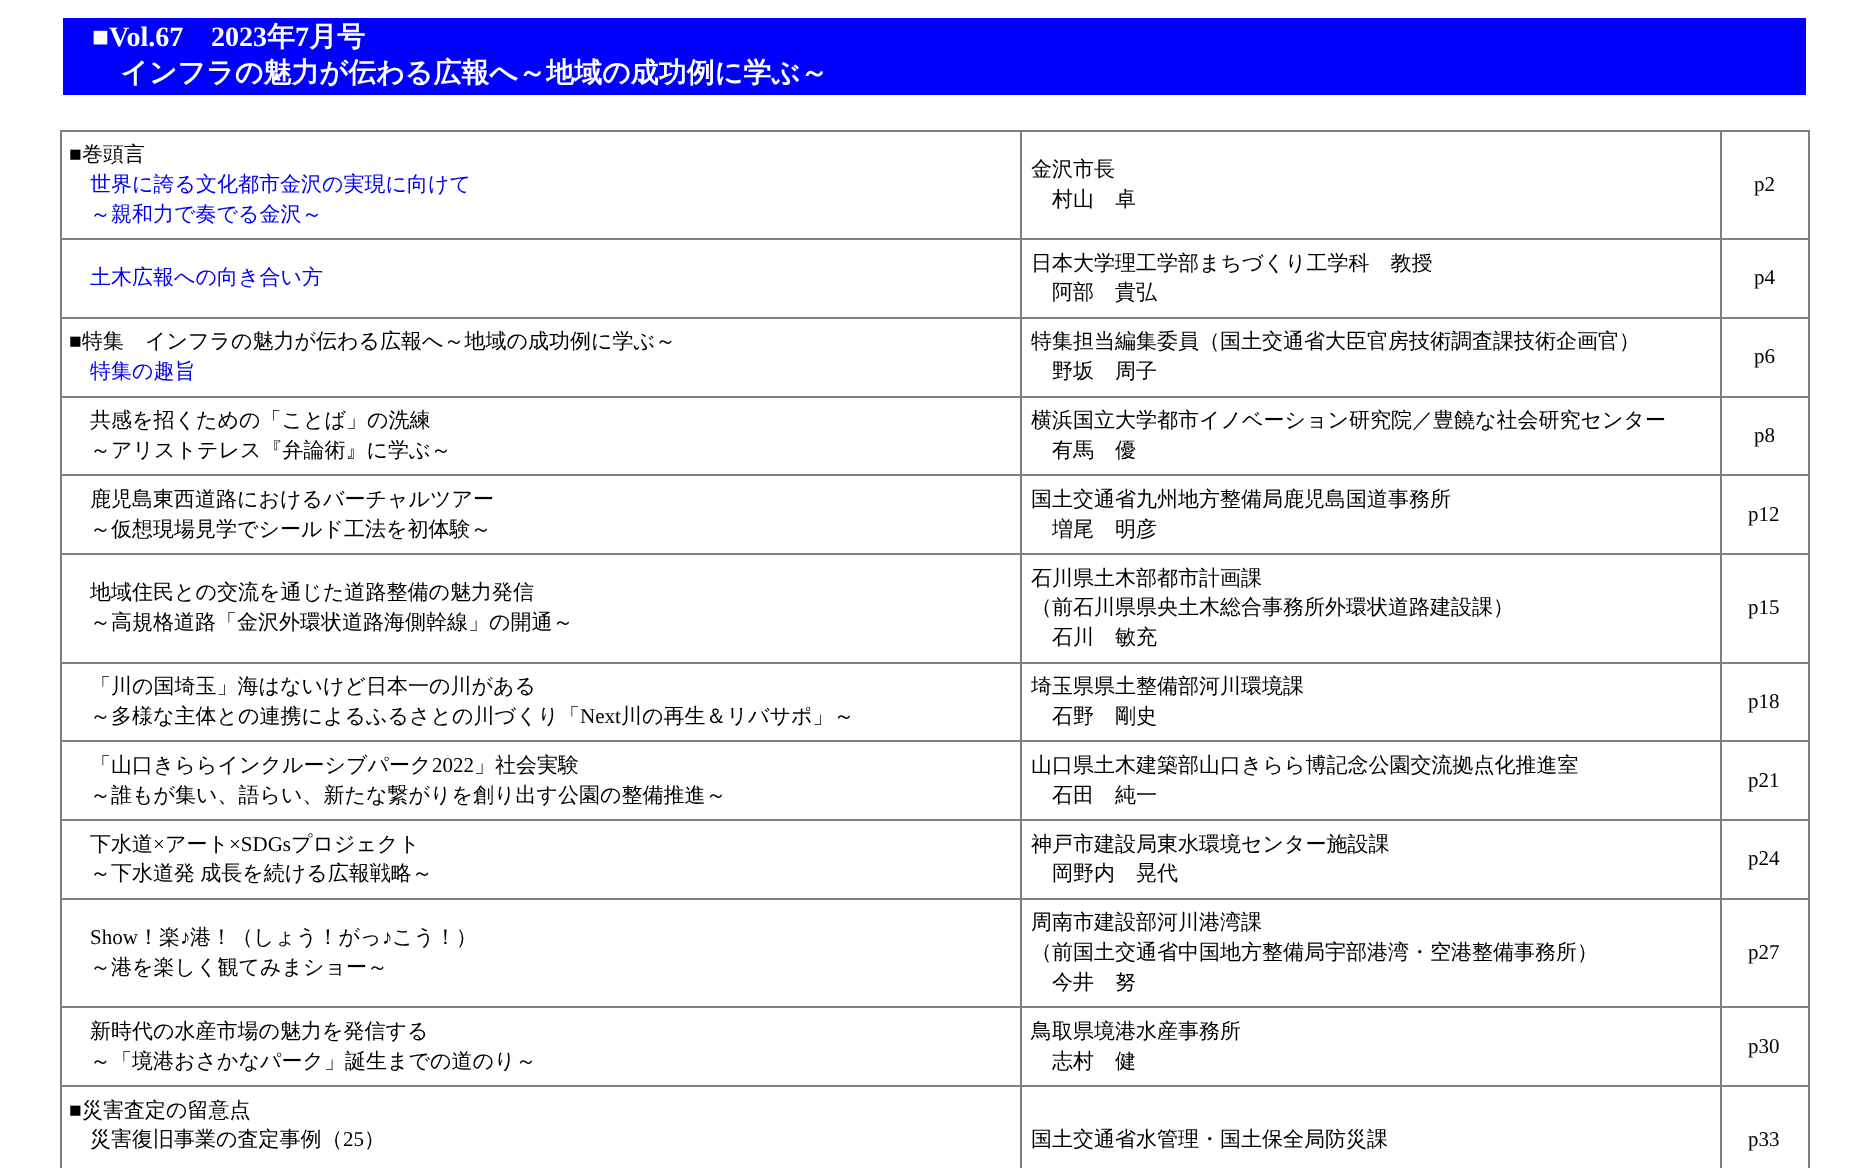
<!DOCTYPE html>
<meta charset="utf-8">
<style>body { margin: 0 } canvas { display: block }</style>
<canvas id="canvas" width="1866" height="1168"></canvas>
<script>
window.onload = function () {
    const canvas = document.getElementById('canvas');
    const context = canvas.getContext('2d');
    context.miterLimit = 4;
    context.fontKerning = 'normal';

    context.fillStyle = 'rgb(255, 255, 255)';
    context.fillRect(0, 0, 1866, 1168);
    context.fillStyle = 'rgb(0, 0, 255)';
    context.fillRect(63, 18, 1743, 77);
    context.fillStyle = 'rgb(128, 128, 128)';
    context.fillRect(60, 130, 1750, 2);
    context.fillRect(1808, 130, 2, 1038);
    context.fillRect(60, 130, 2, 1038);
    context.fillRect(1720, 238, 90, 2);
    context.fillRect(1720, 317, 90, 2);
    context.fillRect(1720, 396, 90, 2);
    context.fillRect(1720, 474, 90, 2);
    context.fillRect(1720, 553, 90, 2);
    context.fillRect(1720, 662, 90, 2);
    context.fillRect(1720, 740, 90, 2);
    context.fillRect(1720, 819, 90, 2);
    context.fillRect(1720, 898, 90, 2);
    context.fillRect(1720, 1006, 90, 2);
    context.fillRect(1720, 1085, 90, 2);
    context.fillRect(1720, 1085, 2, 83);
    context.fillRect(1020, 1085, 702, 2);
    context.fillRect(1720, 1006, 2, 81);
    context.fillRect(1020, 1006, 702, 2);
    context.fillRect(1720, 898, 2, 110);
    context.fillRect(1020, 898, 702, 2);
    context.fillRect(1720, 819, 2, 81);
    context.fillRect(1020, 819, 702, 2);
    context.fillRect(1720, 740, 2, 81);
    context.fillRect(1020, 740, 702, 2);
    context.fillRect(1720, 662, 2, 80);
    context.fillRect(1020, 662, 702, 2);
    context.fillRect(1720, 553, 2, 110);
    context.fillRect(1020, 553, 702, 2);
    context.fillRect(1720, 474, 2, 81);
    context.fillRect(1020, 474, 702, 2);
    context.fillRect(1720, 396, 2, 80);
    context.fillRect(1020, 396, 702, 2);
    context.fillRect(1720, 317, 2, 80);
    context.fillRect(1020, 317, 702, 2);
    context.fillRect(1720, 238, 2, 81);
    context.fillRect(1020, 238, 702, 2);
    context.fillRect(1020, 1085, 2, 83);
    context.fillRect(60, 1085, 962, 2);
    context.fillRect(1020, 1006, 2, 81);
    context.fillRect(60, 1006, 962, 2);
    context.fillRect(1020, 898, 2, 110);
    context.fillRect(60, 898, 962, 2);
    context.fillRect(1020, 819, 2, 81);
    context.fillRect(60, 819, 962, 2);
    context.fillRect(1020, 740, 2, 81);
    context.fillRect(60, 740, 962, 2);
    context.fillRect(1020, 662, 2, 80);
    context.fillRect(60, 662, 962, 2);
    context.fillRect(1020, 553, 2, 110);
    context.fillRect(60, 553, 962, 2);
    context.fillRect(1020, 474, 2, 81);
    context.fillRect(60, 474, 962, 2);
    context.fillRect(1020, 396, 2, 80);
    context.fillRect(60, 396, 962, 2);
    context.fillRect(1020, 317, 2, 80);
    context.fillRect(60, 317, 962, 2);
    context.fillRect(1020, 238, 2, 81);
    context.fillRect(60, 238, 962, 2);
    context.fillRect(1020, 130, 2, 110);
    context.fillRect(1720, 130, 2, 110);
    context.font = 'bold 28px Liberation Serif';
    context.fillStyle = 'rgb(255, 255, 255)';
    context.fillText('■Vol.67', 92, 46);
    context.fillText('2023', 211, 46);
    context.font = 'bold 28px WenQuanYi Zen Hei';
    context.fillText('年', 267, 46);
    context.font = 'bold 28px Liberation Serif';
    context.fillText('7', 295, 46);
    context.font = 'bold 28px WenQuanYi Zen Hei';
    context.fillText('月号', 309, 46);
    context.fillText('インフラの魅力が伝わる広報へ～地域の成功例に学ぶ～', 120, 82);
    context.font = '21px Liberation Serif';
    context.fillStyle = 'rgb(0, 0, 0)';
    context.fillText('■', 69, 161);
    context.font = '500 21px WenQuanYi Zen Hei';
    context.fillText('巻頭言', 82, 161);
    context.fillStyle = 'rgb(0, 0, 238)';
    context.fillText('世界に誇る文化都市金沢の実現に向けて', 90, 191);
    context.fillText('～親和力で奏でる金沢～', 90, 221);
    context.fillStyle = 'rgb(0, 0, 0)';
    context.fillText('金沢市長', 1031, 176);
    context.fillText('村山　卓', 1052, 206);
    context.font = '21px Liberation Serif';
    context.fillText('p2', 1754, 191);
    context.font = '500 21px WenQuanYi Zen Hei';
    context.fillStyle = 'rgb(0, 0, 238)';
    context.fillText('土木広報への向き合い方', 90, 284);
    context.fillStyle = 'rgb(0, 0, 0)';
    context.fillText('日本大学理工学部まちづくり工学科　教授', 1031, 270);
    context.fillText('阿部　貴弘', 1052, 299);
    context.font = '21px Liberation Serif';
    context.fillText('p4', 1754, 284);
    context.fillText('■', 69, 348);
    context.font = '500 21px WenQuanYi Zen Hei';
    context.fillText('特集　インフラの魅力が伝わる広報へ～地域の成功例に学ぶ～', 82, 348);
    context.fillStyle = 'rgb(0, 0, 238)';
    context.fillText('特集の趣旨', 90, 378);
    context.fillStyle = 'rgb(0, 0, 0)';
    context.fillText('特集担当編集委員（国土交通省大臣官房技術調査課技術企画官）', 1031, 348);
    context.fillText('野坂　周子', 1052, 378);
    context.font = '21px Liberation Serif';
    context.fillText('p6', 1754, 363);
    context.font = '500 21px WenQuanYi Zen Hei';
    context.fillText('共感を招くための「ことば」の洗練', 90, 427);
    context.fillText('～アリストテレス『弁論術』に学ぶ～', 90, 457);
    context.fillText('横浜国立大学都市イノベーション研究院／豊饒な社会研究センター', 1031, 427);
    context.fillText('有馬　優', 1052, 457);
    context.font = '21px Liberation Serif';
    context.fillText('p8', 1754, 442);
    context.font = '500 21px WenQuanYi Zen Hei';
    context.fillText('鹿児島東西道路におけるバーチャルツアー', 90, 506);
    context.fillText('～仮想現場見学でシールド工法を初体験～', 90, 536);
    context.fillText('国土交通省九州地方整備局鹿児島国道事務所', 1031, 506);
    context.fillText('増尾　明彦', 1052, 536);
    context.font = '21px Liberation Serif';
    context.fillText('p12', 1748, 521);
    context.font = '500 21px WenQuanYi Zen Hei';
    context.fillText('地域住民との交流を通じた道路整備の魅力発信', 90, 599);
    context.fillText('～高規格道路「金沢外環状道路海側幹線」の開通～', 90, 629);
    context.fillText('石川県土木部都市計画課', 1031, 585);
    context.fillText('（前石川県県央土木総合事務所外環状道路建設課）', 1031, 614);
    context.fillText('石川　敏充', 1052, 644);
    context.font = '21px Liberation Serif';
    context.fillText('p15', 1748, 614);
    context.font = '500 21px WenQuanYi Zen Hei';
    context.fillText('「川の国埼玉」海はないけど日本一の川がある', 90, 693);
    context.fillText('～多様な主体との連携によるふるさとの川づくり「', 90, 723);
    context.font = '21px Liberation Serif';
    context.fillText('Next', 580, 723);
    context.font = '500 21px WenQuanYi Zen Hei';
    context.fillText('川の再生＆リバサポ」～', 621, 723);
    context.fillText('埼玉県県土整備部河川環境課', 1031, 693);
    context.fillText('石野　剛史', 1052, 723);
    context.font = '21px Liberation Serif';
    context.fillText('p18', 1748, 708);
    context.font = '500 21px WenQuanYi Zen Hei';
    context.fillText('「山口きららインクルーシブパーク', 90, 772);
    context.font = '21px Liberation Serif';
    context.fillText('2022', 432, 772);
    context.font = '500 21px WenQuanYi Zen Hei';
    context.fillText('」社会実験', 474, 772);
    context.fillText('～誰もが集い、語らい、新たな繋がりを創り出す公園の整備推進～', 90, 802);
    context.fillText('山口県土木建築部山口きらら博記念公園交流拠点化推進室', 1031, 772);
    context.fillText('石田　純一', 1052, 802);
    context.font = '21px Liberation Serif';
    context.fillText('p21', 1748, 787);
    context.font = '500 21px WenQuanYi Zen Hei';
    context.fillText('下水道', 90, 851);
    context.font = '21px Liberation Serif';
    context.fillText('×', 153, 851);
    context.font = '500 21px WenQuanYi Zen Hei';
    context.fillText('アート', 165, 851);
    context.font = '21px Liberation Serif';
    context.fillText('×SDGs', 229, 851);
    context.font = '500 21px WenQuanYi Zen Hei';
    context.fillText('プロジェクト', 291, 851);
    context.wordSpacing = '-1px';
    context.fillText('～下水道発 成長を続ける広報戦略～', 90, 880);
    context.wordSpacing = '0px';
    context.fillText('神戸市建設局東水環境センター施設課', 1031, 851);
    context.fillText('岡野内　晃代', 1052, 880);
    context.font = '21px Liberation Serif';
    context.fillText('p24', 1748, 865);
    context.fillText('Show', 90, 944);
    context.font = '500 21px WenQuanYi Zen Hei';
    context.fillText('！楽', 138, 944);
    context.font = '21px Liberation Serif';
    context.fillText('♪', 180, 944);
    context.font = '500 21px WenQuanYi Zen Hei';
    context.fillText('港！（しょう！がっ', 190, 944);
    context.font = '21px Liberation Serif';
    context.fillText('♪', 382, 944);
    context.font = '500 21px WenQuanYi Zen Hei';
    context.fillText('こう！）', 392, 944);
    context.fillText('～港を楽しく観てみまショー～', 90, 974);
    context.fillText('周南市建設部河川港湾課', 1031, 929);
    context.fillText('（前国土交通省中国地方整備局宇部港湾・空港整備事務所）', 1031, 959);
    context.fillText('今井　努', 1052, 989);
    context.font = '21px Liberation Serif';
    context.fillText('p27', 1748, 959);
    context.font = '500 21px WenQuanYi Zen Hei';
    context.fillText('新時代の水産市場の魅力を発信する', 90, 1038);
    context.fillText('～「境港おさかなパーク」誕生までの道のり～', 90, 1068);
    context.fillText('鳥取県境港水産事務所', 1031, 1038);
    context.fillText('志村　健', 1052, 1068);
    context.font = '21px Liberation Serif';
    context.fillText('p30', 1748, 1053);
    context.fillText('■', 69, 1117);
    context.font = '500 21px WenQuanYi Zen Hei';
    context.fillText('災害査定の留意点', 82, 1117);
    context.fillText('災害復旧事業の査定事例（', 90, 1146);
    context.font = '21px Liberation Serif';
    context.fillText('25', 343, 1146);
    context.font = '500 21px WenQuanYi Zen Hei';
    context.fillText('）', 364, 1146);
    context.fillText('国土交通省水管理・国土保全局防災課', 1031, 1146);
    context.font = '21px Liberation Serif';
    context.fillText('p33', 1748, 1146);
};
</script>
